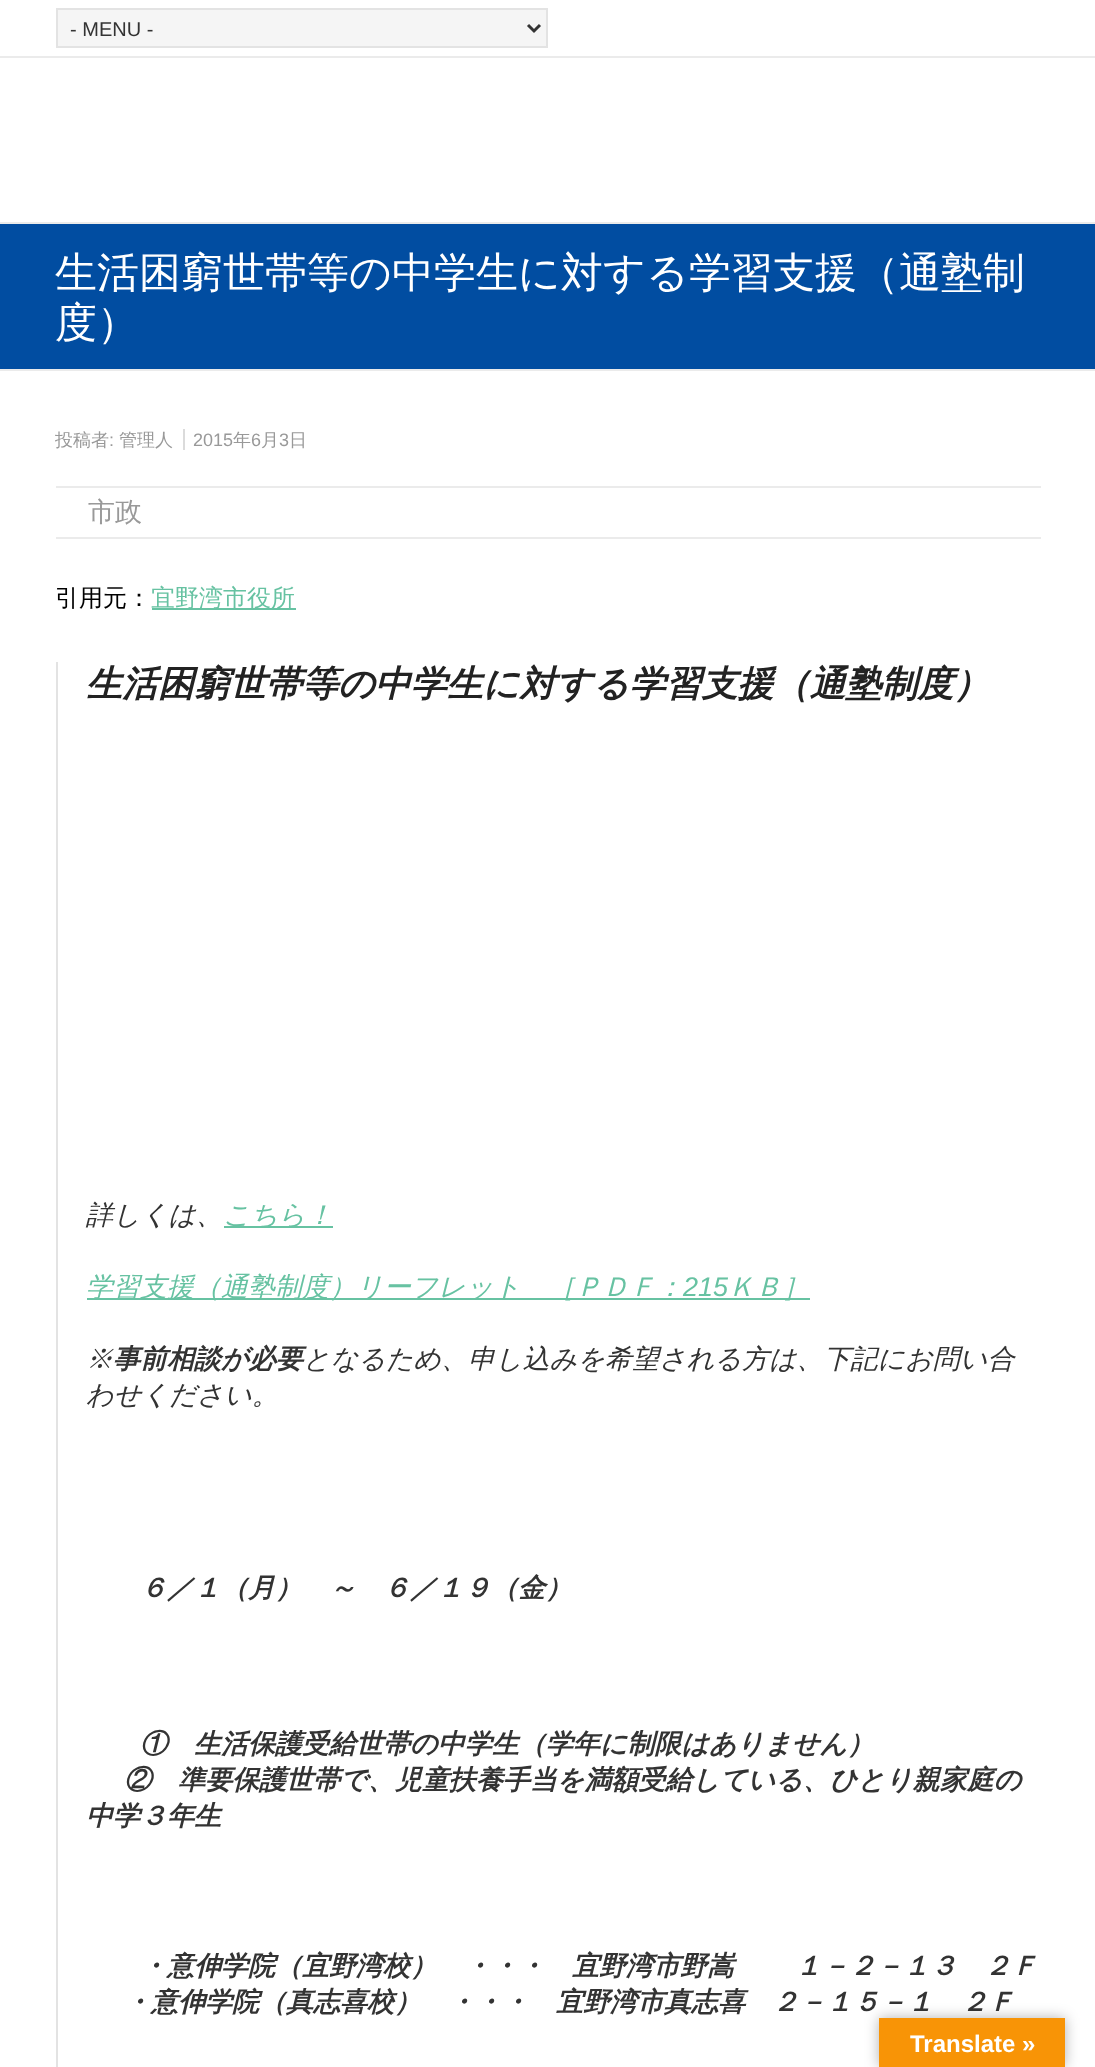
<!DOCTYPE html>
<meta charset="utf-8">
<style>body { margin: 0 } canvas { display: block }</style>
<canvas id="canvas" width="1095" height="2067"></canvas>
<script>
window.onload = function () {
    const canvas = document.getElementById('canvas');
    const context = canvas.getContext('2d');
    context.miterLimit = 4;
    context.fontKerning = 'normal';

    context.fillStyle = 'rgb(255, 255, 255)';
    context.fillRect(0, 0, 1095, 2067);
    context.fillStyle = 'rgb(235, 235, 235)';
    context.fillRect(0, 56, 1095, 2);
    context.fillStyle = 'rgb(245, 245, 245)';
    context.beginPath();
    context.rect(57, 9, 490, 38);
    context.fill();
    context.strokeStyle = 'rgb(227, 227, 227)';
    context.lineWidth = 2;
    context.stroke();
    context.beginPath();
    context.moveTo(528, 25);
    context.lineTo(534, 31);
    context.lineTo(540, 25);
    context.strokeStyle = 'rgb(51, 51, 51)';
    context.lineWidth = 3;
    context.stroke();
    context.fillStyle = 'rgb(235, 235, 235)';
    context.fillRect(0, 222, 1095, 2);
    context.fillStyle = 'rgb(1, 77, 161)';
    context.fillRect(0, 224, 1095, 145);
    context.fillStyle = 'rgb(235, 235, 235)';
    context.fillRect(0, 369, 1095, 2);
    context.fillStyle = 'rgb(219, 219, 219)';
    context.fillRect(183, 429, 2, 21);
    context.fillStyle = 'rgb(235, 235, 235)';
    context.fillRect(56, 486, 985, 2);
    context.fillRect(56, 537, 985, 2);
    context.fillStyle = 'rgb(103, 194, 162)';
    context.fillRect(152, 608, 144, 2);
    context.fillStyle = 'rgb(227, 227, 227)';
    context.fillRect(56, 662, 2, 1405);
    context.fillStyle = 'rgb(103, 194, 162)';
    context.fillRect(224, 1226, 109, 2);
    context.fillRect(87, 1298, 723, 2);
    context.fillStyle = 'rgba(0, 0, 0, 0.3)';
    context.filter = 'blur(7px)';
    context.beginPath();
    context.rect(879, 2018, 186, 49);
    context.fill();
    context.filter = 'none';
    context.fillStyle = 'rgb(248, 148, 6)';
    context.fillRect(879, 2018, 186, 49);
    context.font = '20px Liberation Sans';
    context.fillStyle = 'rgb(51, 51, 51)';
    context.fillText('- MENU -', 70, 36);
    context.font = '500 42px WenQuanYi Zen Hei';
    context.fillStyle = 'rgb(255, 255, 255)';
    context.fillText('生活困窮世帯等の中学生に対する学習支援（通塾制', 55, 287);
    context.fillText('度）', 55, 337);
    context.font = '500 18px WenQuanYi Zen Hei';
    context.fillStyle = 'rgb(153, 153, 153)';
    context.fillText('投稿者', 55, 446);
    context.font = '18px Liberation Sans';
    context.fillText(':', 109, 446);
    context.font = '500 18px WenQuanYi Zen Hei';
    context.fillText('管理人', 119, 446);
    context.font = '18px Liberation Sans';
    context.fillText('2015', 193, 446);
    context.font = '500 18px WenQuanYi Zen Hei';
    context.fillText('年', 233, 446);
    context.font = '18px Liberation Sans';
    context.fillText('6', 251, 446);
    context.font = '500 18px WenQuanYi Zen Hei';
    context.fillText('月', 261, 446);
    context.font = '18px Liberation Sans';
    context.fillText('3', 279, 446);
    context.font = '500 18px WenQuanYi Zen Hei';
    context.fillText('日', 289, 446);
    context.font = '500 27px WenQuanYi Zen Hei';
    context.fillText('市政', 88, 521);
    context.font = '500 24px WenQuanYi Zen Hei';
    context.fillStyle = 'rgb(0, 0, 0)';
    context.fillText('引用元：', 55, 606);
    context.fillStyle = 'rgb(103, 194, 162)';
    context.fillText('宜野湾市役所', 151, 606);
    context.font = 'italic bold 36px WenQuanYi Zen Hei';
    context.fillStyle = 'rgb(34, 34, 34)';
    context.fillText('生活困窮世帯等の中学生に対する学習支援（通塾制度）', 86, 696);
    context.font = 'italic 500 27px WenQuanYi Zen Hei';
    context.fillStyle = 'rgb(51, 51, 51)';
    context.fillText('詳しくは、', 86, 1224);
    context.fillStyle = 'rgb(103, 194, 162)';
    context.fillText('こちら！', 223, 1224);
    context.fillText('学習支援（通塾制度）リーフレット　［ＰＤＦ：', 86, 1296);
    context.font = 'italic 27px Liberation Sans';
    context.fillText('215', 683, 1296);
    context.font = 'italic 500 27px WenQuanYi Zen Hei';
    context.fillText('ＫＢ］', 728, 1296);
    context.fillStyle = 'rgb(51, 51, 51)';
    context.fillText('※', 86, 1368);
    context.font = 'italic bold 27px WenQuanYi Zen Hei';
    context.fillText('事前相談が必要', 113, 1368);
    context.font = 'italic 500 27px WenQuanYi Zen Hei';
    context.fillText('となるため、申し込みを希望される方は、下記にお問い合', 303, 1368);
    context.fillText('わせください。', 86, 1404);
    context.font = 'italic bold 27px WenQuanYi Zen Hei';
    context.fillText('６／１（月）　～　６／１９（金）', 140, 1597);
    context.fillText('①　生活保護受給世帯の中学生（学年に制限はありません）', 140, 1753);
    context.fillText('②　準要保護世帯で、児童扶養手当を満額受給している、ひとり親家庭の', 124, 1789);
    context.fillText('中学３年生', 86, 1825);
    context.wordSpacing = '-1px';
    context.fillText('・意伸学院（宜野湾校）　・・・　宜野湾市野嵩　　 １－２－１３　２Ｆ', 140, 1975);
    context.wordSpacing = '0px';
    context.fillText('・意伸学院（真志喜校）　・・・　宜野湾市真志喜　２－１５－１　２Ｆ', 124, 2011);
    context.font = 'bold 24px Liberation Sans';
    context.fillStyle = 'rgb(255, 255, 255)';
    context.fillText('Translate »', 910, 2052);
};
</script>
